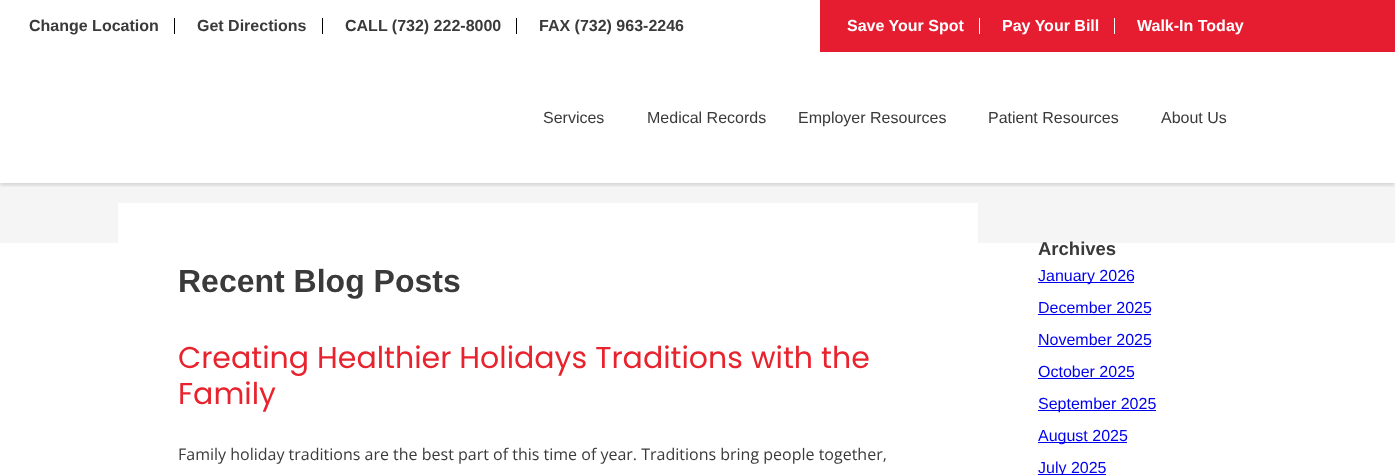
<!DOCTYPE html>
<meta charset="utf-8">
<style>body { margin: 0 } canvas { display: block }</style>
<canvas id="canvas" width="1395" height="475"></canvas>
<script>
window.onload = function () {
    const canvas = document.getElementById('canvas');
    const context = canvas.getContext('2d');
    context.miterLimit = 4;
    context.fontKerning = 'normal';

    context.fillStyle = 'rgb(255, 255, 255)';
    context.fillRect(0, 0, 1395, 475);
    context.fillStyle = 'rgb(230, 29, 48)';
    context.fillRect(820, 0, 575, 52);
    context.fillStyle = 'rgb(0, 0, 0)';
    context.fillRect(174, 18, 1, 16);
    context.fillRect(322, 18, 1, 16);
    context.fillRect(516, 18, 1, 16);
    context.fillStyle = 'rgb(255, 255, 255)';
    context.fillRect(979, 18, 1, 16);
    context.fillRect(1114, 18, 1, 16);
    context.fillStyle = 'rgb(245, 245, 245)';
    context.fillRect(0, 183, 1395, 60);
    context.save();
    context.beginPath();
    context.rect(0, 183, 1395, 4);
    context.clip();
    context.fillStyle = 'rgba(0, 0, 0, 0.15)';
    context.filter = 'blur(2px)';
    context.beginPath();
    context.rect(0, 54, 1395, 131);
    context.fill();
    context.filter = 'none';
    context.restore();
    context.fillStyle = 'rgb(255, 255, 255)';
    context.fillRect(118, 203, 860, 40);
    context.fillStyle = 'rgb(0, 0, 238)';
    context.fillRect(1038, 282, 96, 1);
    context.fillRect(1038, 314, 113, 1);
    context.fillRect(1038, 346, 113, 1);
    context.fillRect(1038, 378, 96, 1);
    context.fillRect(1038, 410, 118, 1);
    context.fillRect(1038, 442, 89, 1);
    context.fillRect(1038, 474, 68, 1);
    context.font = 'bold 16px Liberation Sans';
    context.fillStyle = 'rgb(58, 58, 58)';
    context.fillText('Change Location', 29, 31);
    context.fillText('Get Directions', 197, 31);
    context.fillText('CALL (732) 222-8000', 345, 31);
    context.fillText('FAX (732) 963-2246', 539, 31);
    context.fillStyle = 'rgb(255, 255, 255)';
    context.fillText('Save Your Spot', 847, 31);
    context.fillText('Pay Your Bill', 1002, 31);
    context.fillText('Walk-In Today', 1137, 31);
    context.font = '16px Liberation Sans';
    context.fillStyle = 'rgb(58, 58, 58)';
    context.fillText('Services', 543, 123);
    context.fillText('Medical Records', 647, 123);
    context.fillText('Employer Resources', 798, 123);
    context.fillText('Patient Resources', 988, 123);
    context.fillText('About Us', 1161, 123);
    context.font = 'bold 32px Liberation Sans';
    context.fillText('Recent Blog Posts', 178, 292);
    context.font = '30px Poppins';
    context.fillStyle = 'rgb(232, 35, 45)';
    context.fillText('Creating Healthier Holidays Traditions with the', 178, 368);
    context.fillText('Family', 178, 404);
    context.font = '16px Open Sans';
    context.fillStyle = 'rgb(58, 58, 58)';
    context.fillText('Family holiday traditions are the best part of this time of year. Traditions bring people together,', 178, 460);
    context.font = 'bold 18.5px Liberation Sans';
    context.fillText('Archives', 1038, 255);
    context.font = '16px Liberation Sans';
    context.fillStyle = 'rgb(0, 0, 238)';
    context.fillText('January 2026', 1038, 281);
    context.fillText('December 2025', 1038, 313);
    context.fillText('November 2025', 1038, 345);
    context.fillText('October 2025', 1038, 377);
    context.fillText('September 2025', 1038, 409);
    context.fillText('August 2025', 1038, 441);
    context.fillText('July 2025', 1038, 473);
};
</script>
